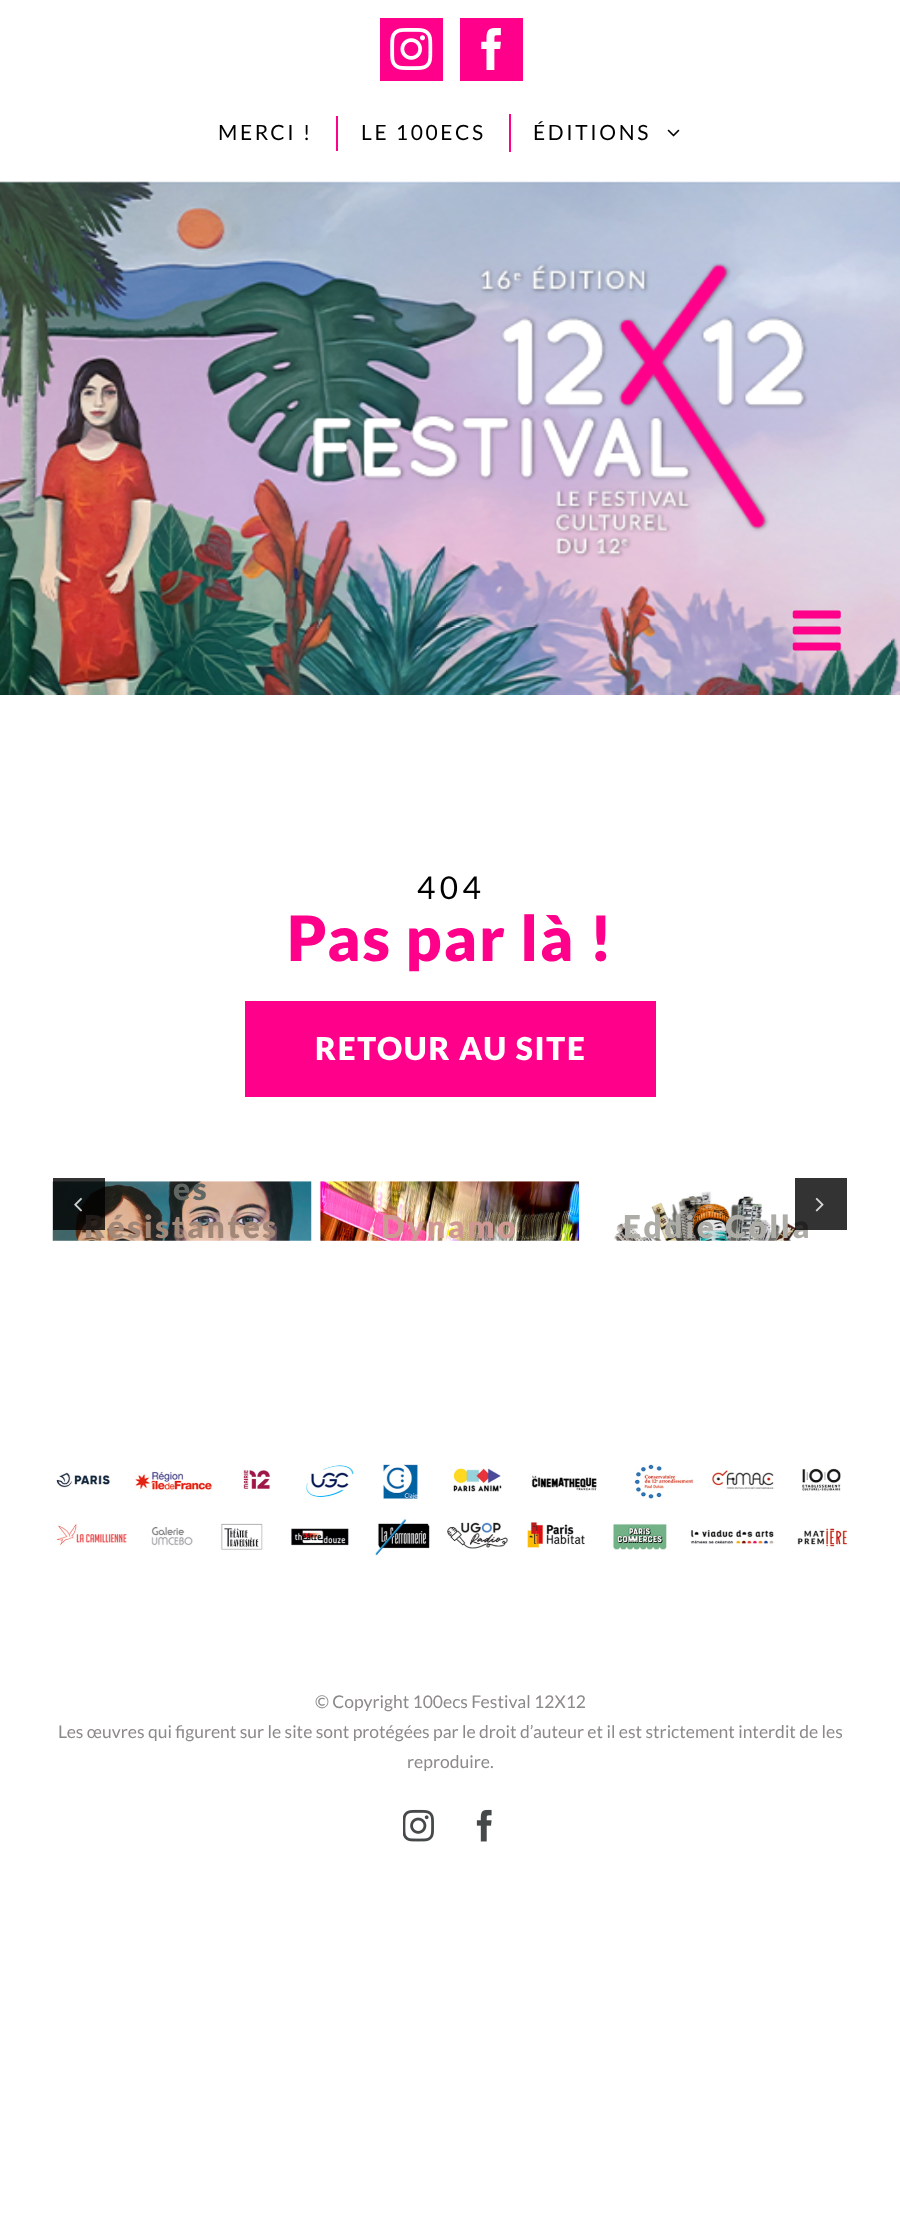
<!DOCTYPE html>
<meta charset="utf-8">
<style>body { margin: 0 } canvas { display: block }</style>
<canvas id="canvas" width="900" height="2228"></canvas>
<img id="img1" src="images/1.png" hidden>
<img id="img2" src="images/2.png" hidden>
<img id="img3" src="images/3.png" hidden>
<img id="img4" src="images/4.png" hidden>
<img id="img5" src="images/5.png" hidden>
<img id="img6" src="images/6.png" hidden>
<img id="img7" src="images/9.png" hidden>
<img id="img8" src="images/10.png" hidden>
<img id="img9" src="images/11.png" hidden>
<img id="img10" src="images/12.png" hidden>
<img id="img11" src="images/13.png" hidden>
<img id="img12" src="images/14.png" hidden>
<img id="img13" src="images/7.png" hidden>
<img id="img14" src="images/8.png" hidden>
<script>
window.onload = function () {
    const canvas = document.getElementById('canvas');
    const context = canvas.getContext('2d');
    context.miterLimit = 4;
    context.fontKerning = 'normal';

    context.fillStyle = 'rgb(255, 255, 255)';
    context.fillRect(0, 0, 900, 2228);
    context.fillStyle = 'rgb(255, 0, 138)';
    context.fillRect(380, 18, 63, 63);
    context.drawImage(document.getElementById('img1'), 390, 28, 43, 42);
    context.fillRect(460, 18, 63, 63);
    context.drawImage(document.getElementById('img2'), 481, 28, 20, 42);
    context.fillRect(336, 116, 2, 35);
    context.fillRect(509, 114, 2, 38);
    context.drawImage(document.getElementById('img3'), 667, 129, 13, 8);
    context.drawImage(document.getElementById('img4'), 0, 181, 900, 514);
    context.drawImage(document.getElementById('img5'), 312, 263, 496, 295);
    context.drawImage(document.getElementById('img6'), 792, 610, 49, 41);
    context.fillRect(245, 1001, 411, 96);
    context.drawImage(document.getElementById('img7'), 52, 1181, 260, 60);
    context.drawImage(document.getElementById('img8'), 320, 1181, 260, 60);
    context.drawImage(document.getElementById('img9'), 613, 1191, 185, 50);
    context.drawImage(document.getElementById('img10'), 56, 1464, 791, 92);
    context.drawImage(document.getElementById('img11'), 403, 1809, 31, 33);
    context.drawImage(document.getElementById('img12'), 476, 1809, 16, 33);
    context.letterSpacing = '2.6px';
    context.font = '21px Lato';
    context.fillStyle = 'rgb(0, 0, 0)';
    context.fillText('MERCI !', 218, 140);
    context.fillText('LE 100ECS', 361, 140);
    context.fillText('ÉDITIONS', 533, 140);
    context.letterSpacing = '4.5px';
    context.font = '31.5px Lato';
    context.fillText('404', 417, 899);
    context.letterSpacing = '1.75px';
    context.font = '900 62.5px Lato';
    context.fillStyle = 'rgb(255, 0, 138)';
    context.fillText('Pas par là !', 287, 961);
    context.font = '900 31.5px Lato';
    context.fillStyle = 'rgb(255, 255, 255)';
    context.fillText('RETOUR AU SITE', 315, 1060);
    context.letterSpacing = '2.6px';
    context.fillStyle = 'rgb(96, 102, 98)';
    context.fillText('es', 173, 1200);
    context.fillStyle = 'rgb(161, 135, 119)';
    context.fillText('Résistantes', 84, 1238);
    context.fillStyle = 'rgba(0, 0, 0, 0.8)';
    context.fillRect(53, 1178, 52, 52);
    context.drawImage(document.getElementById('img13'), 74, 1197, 8, 15);
    context.save();
    context.beginPath();
    context.rect(320, 1181, 259, 60);
    context.clip();
    context.fillStyle = 'rgb(208, 152, 147)';
    context.fillText('Dynamo', 381, 1238);
    context.restore();
    context.fillStyle = 'rgb(173, 172, 167)';
    context.fillText('Eddie Colla', 623, 1238);
    context.fillStyle = 'rgba(0, 0, 0, 0.8)';
    context.fillRect(795, 1178, 52, 52);
    context.drawImage(document.getElementById('img14'), 815, 1197, 9, 15);
    context.letterSpacing = '0px';
    context.font = '17.5px Lato';
    context.fillStyle = 'rgb(140, 137, 137)';
    context.fillText('© Copyright 100ecs Festival 12X12', 315, 1708);
    context.fillText('Les œuvres qui figurent sur le site sont protégées par le droit d’auteur et il est strictement interdit de les', 58, 1738);
    context.fillText('reproduire.', 407, 1768);
};
</script>
